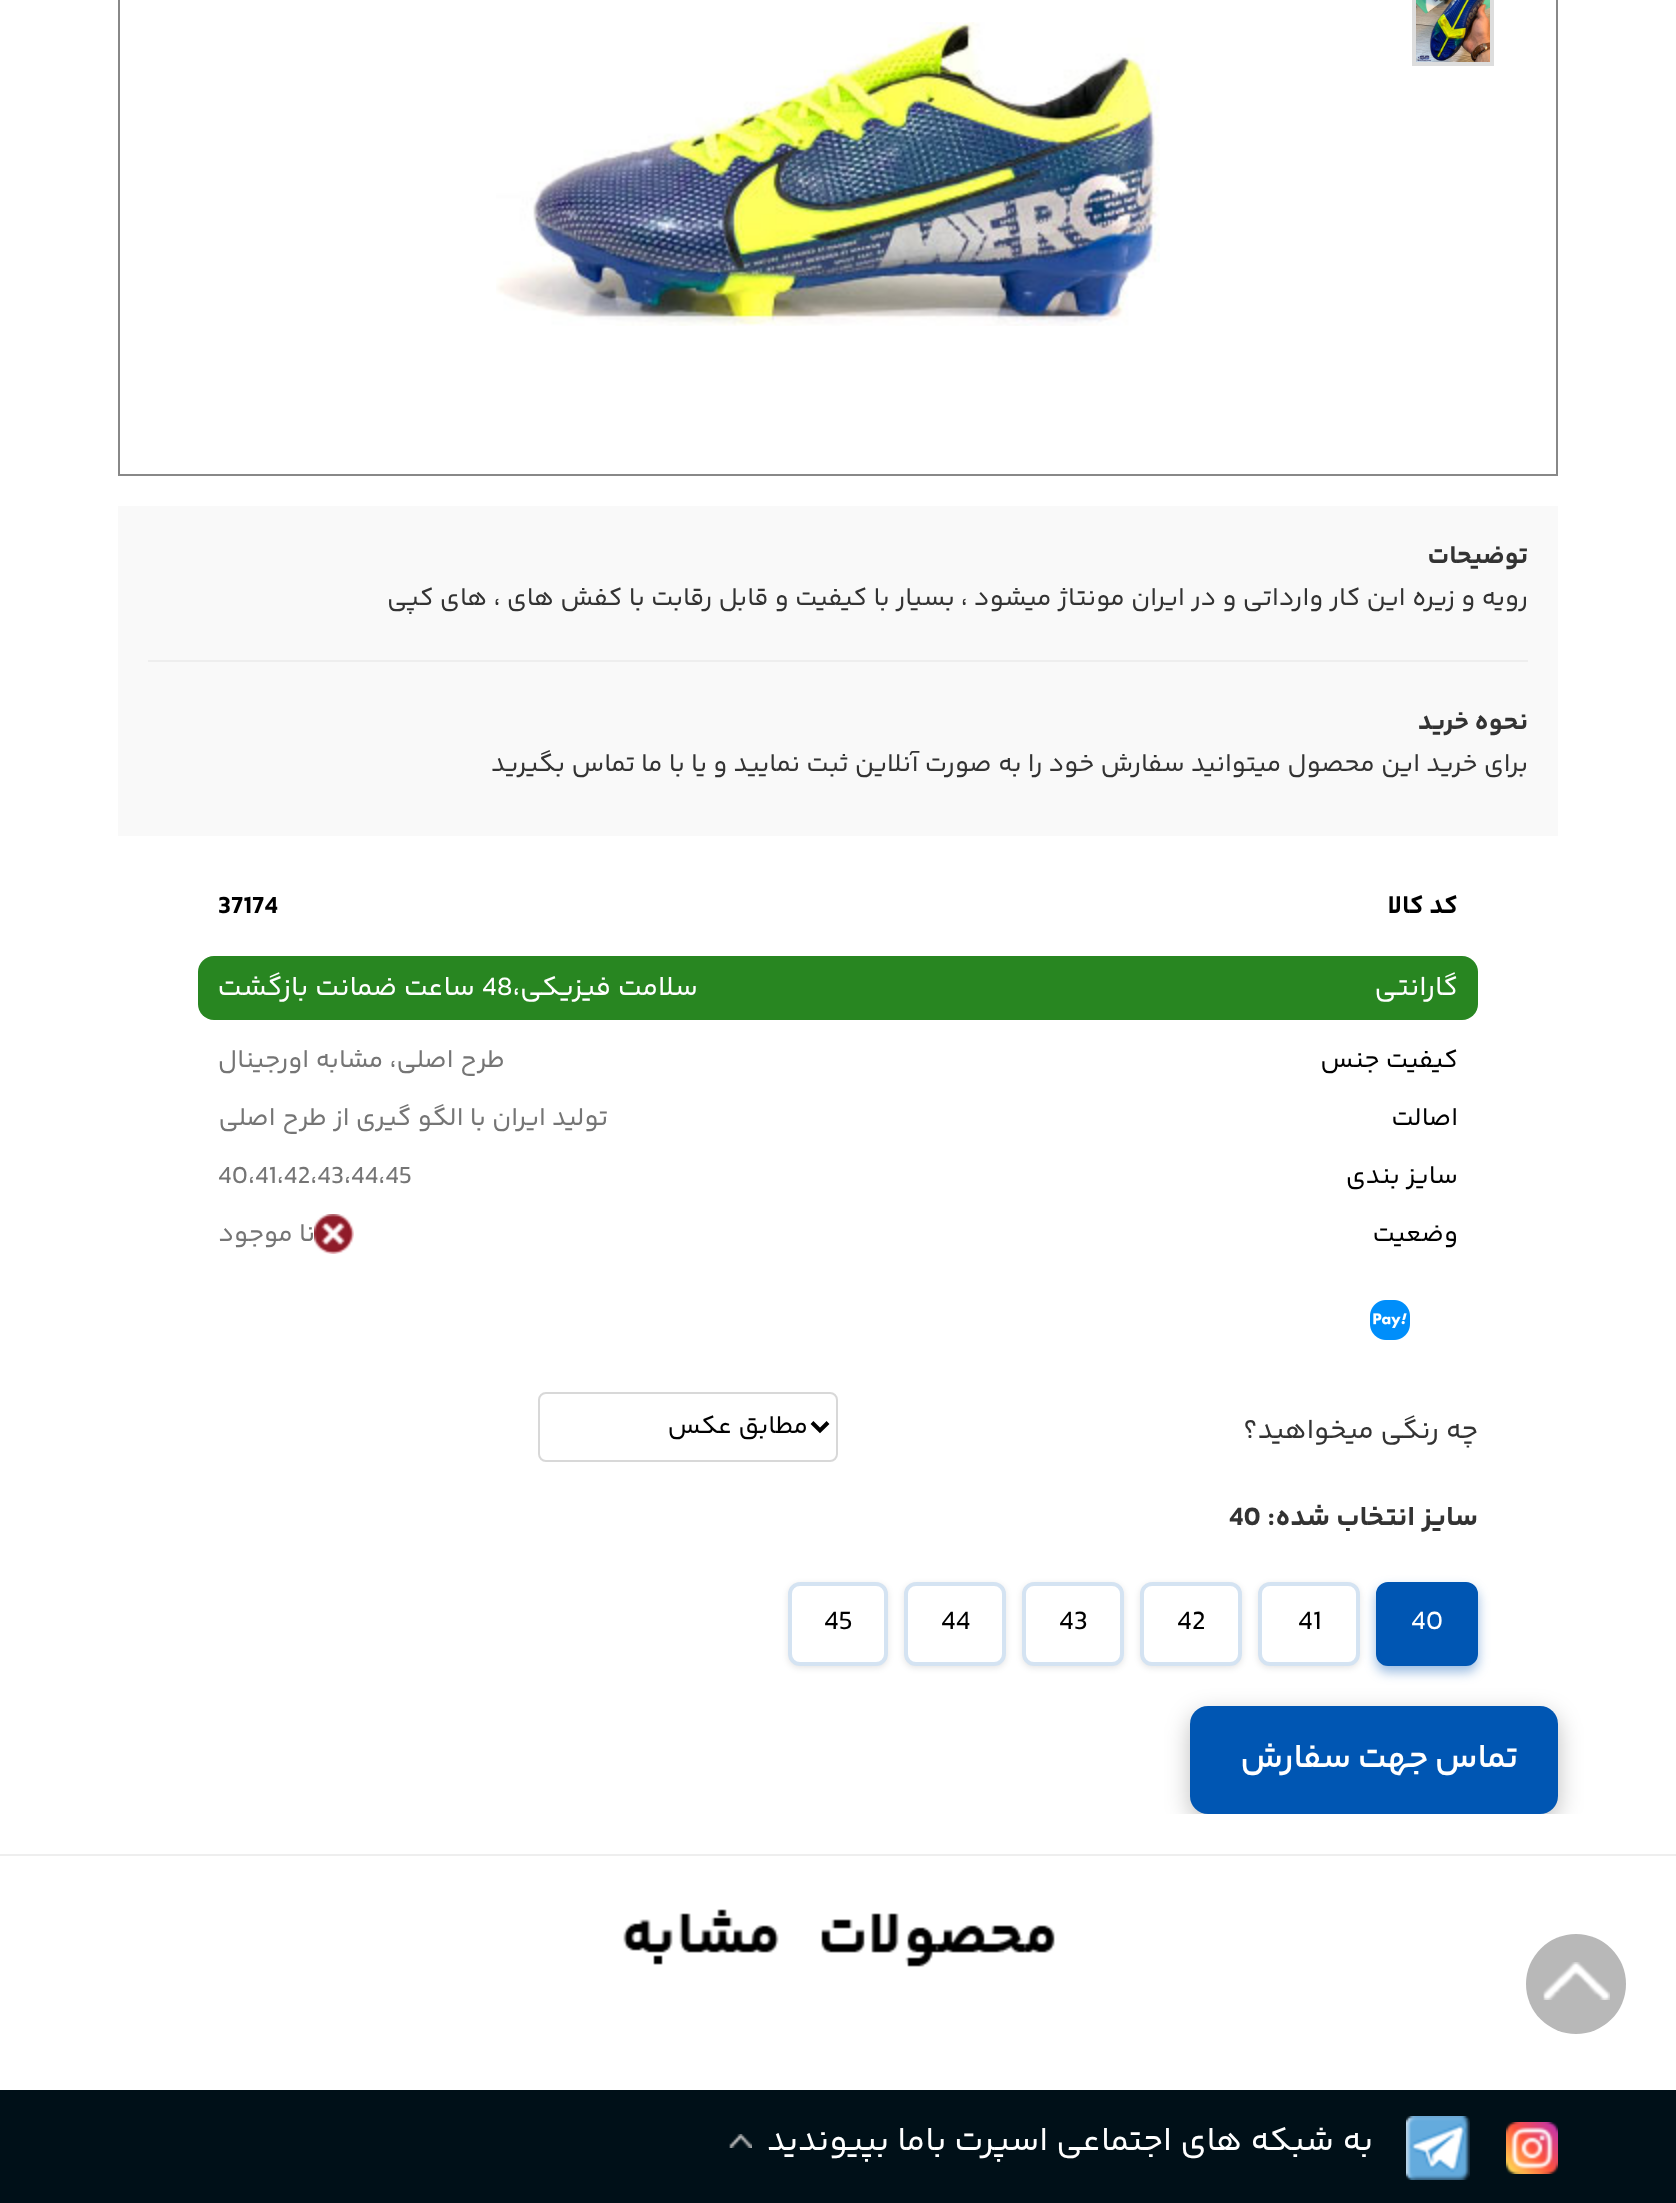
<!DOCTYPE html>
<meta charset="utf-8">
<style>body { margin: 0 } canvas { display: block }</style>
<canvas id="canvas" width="1676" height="2203"></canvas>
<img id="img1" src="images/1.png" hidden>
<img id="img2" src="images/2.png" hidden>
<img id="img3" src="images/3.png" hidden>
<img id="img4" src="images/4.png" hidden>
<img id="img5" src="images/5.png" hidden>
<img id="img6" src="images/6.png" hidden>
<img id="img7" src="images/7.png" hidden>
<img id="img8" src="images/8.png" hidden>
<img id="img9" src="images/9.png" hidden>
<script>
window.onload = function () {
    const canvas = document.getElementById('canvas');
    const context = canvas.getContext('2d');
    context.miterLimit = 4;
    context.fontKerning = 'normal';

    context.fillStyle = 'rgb(255, 255, 255)';
    context.fillRect(0, 0, 1676, 2203);
    context.strokeStyle = 'rgb(136, 136, 136)';
    context.lineWidth = 2;
    context.strokeRect(119, -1, 1438, 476);
    context.strokeStyle = 'rgb(221, 221, 221)';
    context.lineWidth = 4;
    context.strokeRect(1414, -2, 78, 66);
    context.drawImage(document.getElementById('img1'), 1416, 0, 74, 62);
    context.drawImage(document.getElementById('img2'), 496, 22, 664, 304);
    context.fillStyle = 'rgb(249, 249, 249)';
    context.fillRect(118, 506, 1440, 330);
    context.fillStyle = 'rgb(238, 238, 238)';
    context.fillRect(148, 660, 1380, 2);
    context.fillStyle = 'rgb(40, 134, 33)';
    context.beginPath();
    context.roundRect(198, 956, 1280, 64, 16);
    context.fill();
    context.drawImage(document.getElementById('img3'), 314, 1214, 40, 40);
    context.drawImage(document.getElementById('img4'), 1370, 1300, 40, 40);
    context.beginPath();
    context.roundRect(539, 1393, 298, 68, 7);
    context.strokeStyle = 'rgb(216, 216, 216)';
    context.lineWidth = 2;
    context.stroke();
    context.beginPath();
    context.moveTo(812, 1422.5);
    context.lineTo(820, 1430.5);
    context.lineTo(828, 1422.5);
    context.strokeStyle = 'rgb(0, 0, 0)';
    context.lineWidth = 4;
    context.stroke();
    context.fillStyle = 'rgba(0, 86, 179, 0.4)';
    context.filter = 'blur(6px)';
    context.beginPath();
    context.roundRect(1376, 1588, 102, 84, 12);
    context.fill();
    context.filter = 'none';
    context.fillStyle = 'rgb(0, 86, 179)';
    context.beginPath();
    context.roundRect(1378, 1584, 98, 80, 10);
    context.fill();
    context.strokeStyle = 'rgb(0, 86, 179)';
    context.stroke();
    context.fillStyle = 'rgba(0, 0, 0, 0.1)';
    context.filter = 'blur(3px)';
    context.beginPath();
    context.roundRect(1258, 1584, 102, 84, 12);
    context.fill();
    context.filter = 'none';
    context.fillStyle = 'rgb(255, 255, 255)';
    context.beginPath();
    context.roundRect(1258, 1582, 102, 84, 12);
    context.fill();
    context.beginPath();
    context.roundRect(1260, 1584, 98, 80, 10);
    context.strokeStyle = 'rgba(0, 86, 179, 0.17)';
    context.stroke();
    context.fillStyle = 'rgba(0, 0, 0, 0.1)';
    context.filter = 'blur(3px)';
    context.beginPath();
    context.roundRect(1140, 1584, 102, 84, 12);
    context.fill();
    context.filter = 'none';
    context.fillStyle = 'rgb(255, 255, 255)';
    context.beginPath();
    context.roundRect(1140, 1582, 102, 84, 12);
    context.fill();
    context.beginPath();
    context.roundRect(1142, 1584, 98, 80, 10);
    context.stroke();
    context.fillStyle = 'rgba(0, 0, 0, 0.1)';
    context.filter = 'blur(3px)';
    context.beginPath();
    context.roundRect(1022, 1584, 102, 84, 12);
    context.fill();
    context.filter = 'none';
    context.fillStyle = 'rgb(255, 255, 255)';
    context.beginPath();
    context.roundRect(1022, 1582, 102, 84, 12);
    context.fill();
    context.beginPath();
    context.roundRect(1024, 1584, 98, 80, 10);
    context.stroke();
    context.fillStyle = 'rgba(0, 0, 0, 0.1)';
    context.filter = 'blur(3px)';
    context.beginPath();
    context.roundRect(904, 1584, 102, 84, 12);
    context.fill();
    context.filter = 'none';
    context.fillStyle = 'rgb(255, 255, 255)';
    context.beginPath();
    context.roundRect(904, 1582, 102, 84, 12);
    context.fill();
    context.beginPath();
    context.roundRect(906, 1584, 98, 80, 10);
    context.stroke();
    context.fillStyle = 'rgba(0, 0, 0, 0.1)';
    context.filter = 'blur(3px)';
    context.beginPath();
    context.roundRect(788, 1584, 100, 84, 12);
    context.fill();
    context.filter = 'none';
    context.fillStyle = 'rgb(255, 255, 255)';
    context.beginPath();
    context.roundRect(788, 1582, 100, 84, 12);
    context.fill();
    context.beginPath();
    context.roundRect(790, 1584, 96, 80, 10);
    context.stroke();
    context.fillStyle = 'rgb(238, 238, 238)';
    context.fillRect(0, 1854, 1676, 2);
    context.save();
    context.beginPath();
    context.rect(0, 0, 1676, 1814);
    context.clip();
    context.fillStyle = 'rgba(0, 0, 0, 0.25)';
    context.filter = 'blur(12px)';
    context.beginPath();
    context.roundRect(1190, 1714, 368, 108, 18);
    context.fill();
    context.filter = 'none';
    context.restore();
    context.fillStyle = 'rgb(0, 86, 179)';
    context.beginPath();
    context.roundRect(1190, 1706, 368, 108, 18);
    context.fill();
    context.drawImage(document.getElementById('img5'), 623, 1909, 432, 58);
    context.fillStyle = 'rgb(184, 184, 184)';
    context.beginPath();
    context.arc(1576, 1984, 50, 0, 2 * Math.PI);
    context.fill();
    context.drawImage(document.getElementById('img6'), 1543, 1962, 67, 38);
    context.fillStyle = 'rgb(0, 16, 24)';
    context.fillRect(0, 2090, 1676, 113);
    context.drawImage(document.getElementById('img7'), 1506, 2122, 52, 52);
    context.drawImage(document.getElementById('img8'), 1406, 2116, 64, 64);
    context.drawImage(document.getElementById('img9'), 729, 2134, 23, 14);
    context.direction = 'rtl';
    context.font = 'bold 26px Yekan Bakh';
    context.fillStyle = 'rgb(51, 51, 51)';
    context.fillText('توضیحات', 1528, 563);
    context.font = '26px Yekan Bakh';
    context.fillText('رویه و زیره این کار وارداتی و در ایران مونتاژ میشود ، بسیار با کیفیت و قابل رقابت با کفش های ، های کپی', 1528, 605);
    context.font = 'bold 26px Yekan Bakh';
    context.fillText('نحوه خرید', 1528, 729);
    context.font = '26px Yekan Bakh';
    context.fillText('برای خرید این محصول میتوانید سفارش خود را به صورت آنلاین ثبت نمایید و یا با ما', 1528, 771);
    context.fillText('تماس', 635, 771);
    context.fillText('بگیرید', 565, 771);
    context.font = 'bold 26px Yekan Bakh';
    context.fillStyle = 'rgb(0, 0, 0)';
    context.fillText('کد کالا', 1458, 913);
    context.direction = 'ltr';
    context.fillText('37174', 218, 913);
    context.direction = 'rtl';
    context.font = '28px Yekan Bakh';
    context.fillStyle = 'rgb(255, 255, 255)';
    context.fillText('گارانتی', 1458, 995);
    context.fillText('سلامت فیزیکی،', 698, 995);
    context.direction = 'ltr';
    context.fillText('48', 482, 995);
    context.direction = 'rtl';
    context.fillText('ساعت ضمانت بازگشت', 475, 995);
    context.font = '26px Yekan Bakh';
    context.fillStyle = 'rgb(0, 0, 0)';
    context.fillText('کیفیت جنس', 1458, 1067);
    context.fillStyle = 'rgb(117, 117, 117)';
    context.fillText('طرح اصلی، مشابه اورجینال', 505, 1067);
    context.fillStyle = 'rgb(0, 0, 0)';
    context.fillText('اصالت', 1458, 1125);
    context.fillStyle = 'rgb(117, 117, 117)';
    context.fillText('تولید ایران با الگو گیری از طرح اصلی', 608, 1125);
    context.fillStyle = 'rgb(0, 0, 0)';
    context.fillText('سایز بندی', 1458, 1183);
    context.direction = 'ltr';
    context.fillStyle = 'rgb(117, 117, 117)';
    context.fillText('40،41،42،43،44،45', 218, 1183);
    context.direction = 'rtl';
    context.fillStyle = 'rgb(0, 0, 0)';
    context.fillText('وضعیت', 1458, 1241);
    context.fillStyle = 'rgb(117, 117, 117)';
    context.fillText('نا موجود', 315, 1241);
    context.font = '28px Yekan Bakh';
    context.fillStyle = 'rgb(51, 51, 51)';
    context.fillText('چه رنگی میخواهید؟', 1478, 1438);
    context.font = '26px Yekan Bakh';
    context.fillStyle = 'rgb(0, 0, 0)';
    context.fillText('مطابق عکس', 808, 1433);
    context.font = 'bold 28px Yekan Bakh';
    context.fillStyle = 'rgb(51, 51, 51)';
    context.fillText('سایز انتخاب شده:', 1478, 1525);
    context.direction = 'ltr';
    context.fillText('40', 1229, 1525);
    context.font = '28px Yekan Bakh';
    context.fillStyle = 'rgb(255, 255, 255)';
    context.fillText('40', 1411, 1629);
    context.fillStyle = 'rgb(0, 0, 0)';
    context.fillText('41', 1298, 1629);
    context.fillText('42', 1177, 1629);
    context.fillText('43', 1059, 1629);
    context.fillText('44', 941, 1629);
    context.fillText('45', 824, 1629);
    context.letterSpacing = '0.6px';
    context.wordSpacing = '-2px';
    context.direction = 'rtl';
    context.font = '600 34px Yekan Bakh';
    context.fillStyle = 'rgb(255, 255, 255)';
    context.fillText('تماس جهت سفارش', 1518, 1767);
    context.letterSpacing = '0px';
    context.wordSpacing = '0px';
    context.font = '34px Yekan Bakh';
    context.fillText('به شبکه های اجتماعی اسپرت باما بپیوندید', 1373, 2150);
};
</script>
